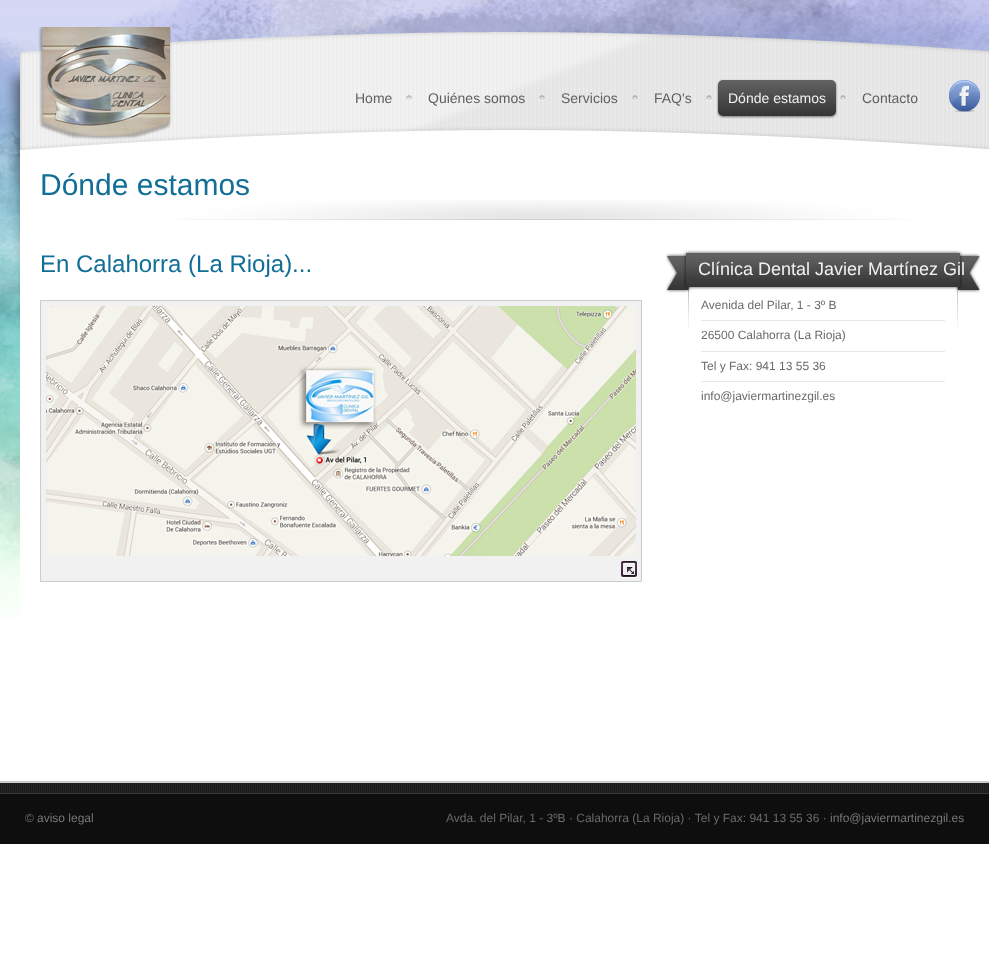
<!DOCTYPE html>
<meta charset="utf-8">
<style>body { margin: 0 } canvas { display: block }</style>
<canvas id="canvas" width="989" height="980"></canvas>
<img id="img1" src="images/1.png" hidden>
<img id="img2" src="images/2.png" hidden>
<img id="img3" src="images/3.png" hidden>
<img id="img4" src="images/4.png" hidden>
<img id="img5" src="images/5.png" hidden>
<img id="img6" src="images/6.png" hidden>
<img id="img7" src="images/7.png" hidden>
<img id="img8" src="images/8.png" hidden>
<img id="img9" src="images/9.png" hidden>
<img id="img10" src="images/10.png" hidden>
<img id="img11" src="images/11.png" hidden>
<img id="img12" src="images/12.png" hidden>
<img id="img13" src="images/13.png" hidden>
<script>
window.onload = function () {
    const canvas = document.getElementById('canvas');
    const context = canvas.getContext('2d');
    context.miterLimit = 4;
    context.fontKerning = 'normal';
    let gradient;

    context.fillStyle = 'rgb(255, 255, 255)';
    context.fillRect(0, 0, 989, 980);
    context.drawImage(document.getElementById('img1'), 0, 0, 989, 620);
    context.drawImage(document.getElementById('img2'), 5, 32, 984, 300);
    context.drawImage(document.getElementById('img3'), 38, 27, 134, 113);
    context.drawImage(document.getElementById('img4'), 406, 95, 6, 6);
    context.drawImage(document.getElementById('img5'), 539, 95, 6, 6);
    context.drawImage(document.getElementById('img6'), 632, 95, 6, 6);
    context.drawImage(document.getElementById('img7'), 706, 95, 6, 6);
    context.drawImage(document.getElementById('img6'), 840, 95, 6, 6);
    context.fillStyle = 'rgba(0, 0, 0, 0.5)';
    context.filter = 'blur(1px)';
    context.beginPath();
    context.roundRect(718, 81, 118, 36, 5);
    context.fill();
    context.filter = 'none';
    gradient = context.createLinearGradient(718, 80, 718, 116);
    gradient.addColorStop(0, 'rgb(98, 98, 98)');
    gradient.addColorStop(1, 'rgb(53, 53, 53)');
    context.fillStyle = gradient;
    context.beginPath();
    context.roundRect(718, 80, 118, 36, 5);
    context.fill();
    context.drawImage(document.getElementById('img8'), 949, 80, 31, 32);
    context.fillStyle = 'rgb(255, 255, 255)';
    context.fillRect(20, 332, 969, 288);
    context.drawImage(document.getElementById('img9'), 173, 200, 737, 20);
    context.fillStyle = 'rgb(241, 241, 241)';
    context.fillRect(41, 301, 600, 280);
    context.drawImage(document.getElementById('img10'), 621, 561, 16, 17);
    context.strokeStyle = 'rgb(204, 204, 204)';
    context.strokeRect(40.5, 300.5, 601, 281);
    context.drawImage(document.getElementById('img11'), 46, 306, 590, 250);
    context.drawImage(document.getElementById('img12'), 666, 250, 314, 78);
    context.fillStyle = 'rgb(232, 232, 232)';
    context.fillRect(701, 320, 244, 1);
    context.fillRect(701, 351, 244, 1);
    context.fillRect(701, 381, 244, 1);
    context.fillStyle = 'rgb(37, 37, 37)';
    context.fillRect(0, 783, 989, 10);
    context.drawImage(document.getElementById('img13'), 0, 783, 989, 10);
    context.fillStyle = 'rgb(204, 204, 204)';
    context.fillRect(0, 781, 989, 2);
    context.fillStyle = 'rgb(56, 56, 56)';
    context.fillRect(0, 793, 989, 1);
    context.fillStyle = 'rgb(14, 14, 14)';
    context.fillRect(0, 794, 989, 50);
    context.font = '14px Liberation Sans';
    context.fillStyle = 'rgb(96, 96, 96)';
    context.fillText('Home', 355, 103);
    context.fillText('Quiénes somos', 428, 103);
    context.fillText('Servicios', 561, 103);
    context.fillText('FAQ\'s', 654, 103);
    context.fillStyle = 'rgb(241, 241, 241)';
    context.fillText('Dónde estamos', 728, 103);
    context.fillStyle = 'rgb(96, 96, 96)';
    context.fillText('Contacto', 862, 103);
    context.font = '30px Liberation Sans';
    context.fillStyle = 'rgb(17, 110, 151)';
    context.fillText('Dónde estamos', 40, 195);
    context.font = '24px Liberation Sans';
    context.fillText('En Calahorra (La Rioja)...', 40, 272);
    context.font = '18px Liberation Sans';
    context.fillStyle = 'rgb(241, 241, 241)';
    context.fillText('Clínica Dental Javier Martínez Gil', 698, 275);
    context.font = '12px Liberation Sans';
    context.fillStyle = 'rgb(106, 106, 106)';
    context.fillText('Avenida del Pilar, 1 - 3º B', 701, 309);
    context.fillText('26500 Calahorra (La Rioja)', 701, 339);
    context.fillText('Tel y Fax: 941 13 55 36', 701, 370);
    context.fillText('info@javiermartinezgil.es', 701, 400);
    context.save();
    context.beginPath();
    context.rect(25, 809, 940, 20);
    context.clip();
    context.fillText('©', 25, 822);
    context.restore();
    context.fillStyle = 'rgb(120, 120, 120)';
    context.fillText('aviso legal', 37, 822);
    context.fillStyle = 'rgb(106, 106, 106)';
    context.fillText('Avda. del Pilar, 1 - 3ºB · Calahorra (La Rioja) · Tel y Fax: 941 13 55 36 ·', 446, 822);
    context.fillStyle = 'rgb(120, 120, 120)';
    context.fillText('info@javiermartinezgil.es', 830, 822);
};
</script>
